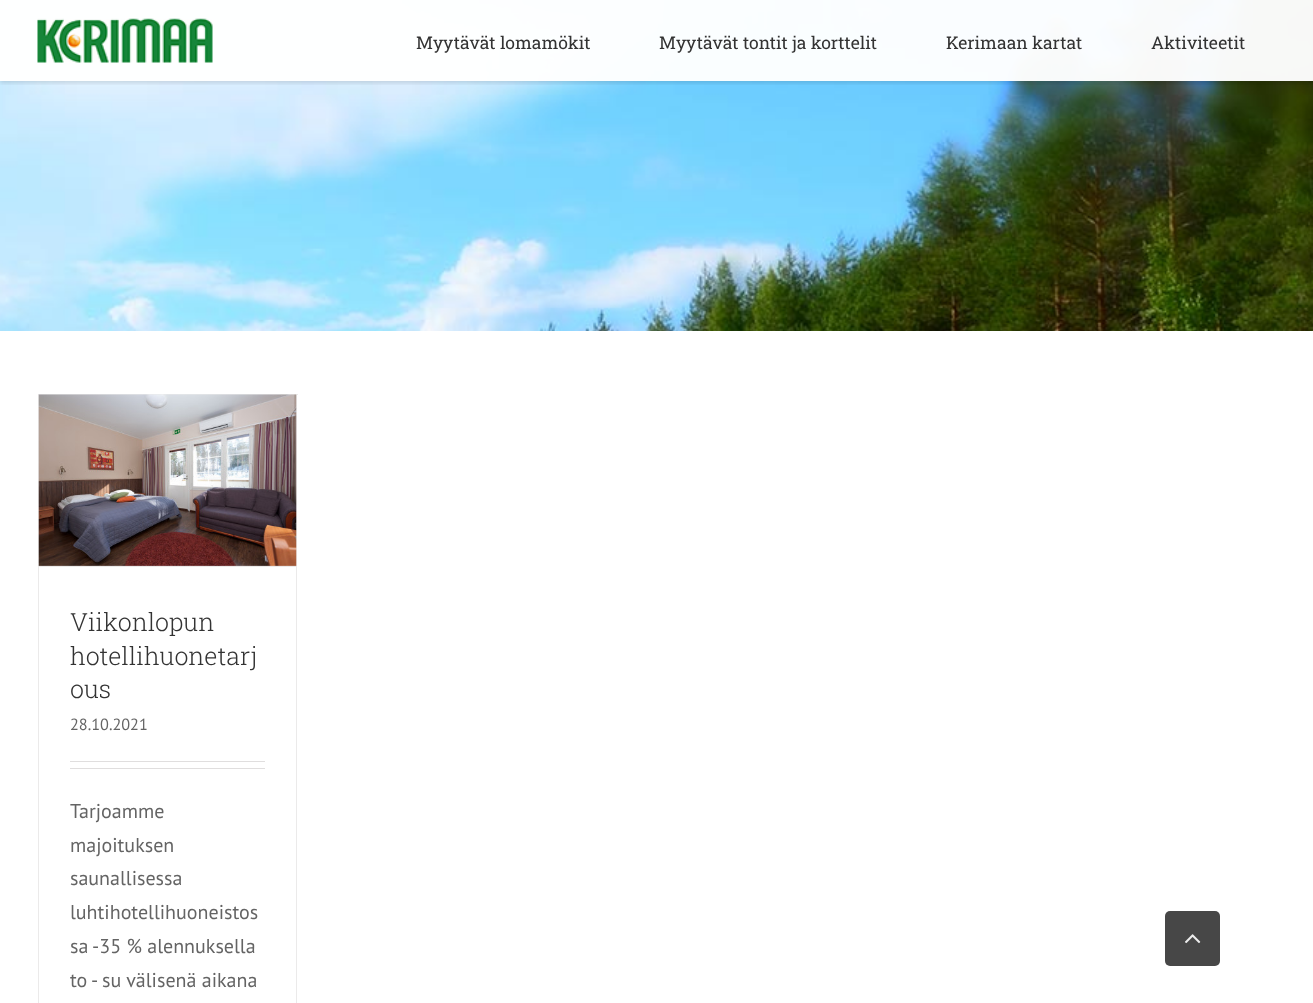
<!DOCTYPE html>
<meta charset="utf-8">
<style>body { margin: 0 } canvas { display: block }</style>
<canvas id="canvas" width="1313" height="1003"></canvas>
<img id="img1" src="images/1.png" hidden>
<img id="img2" src="images/2.png" hidden>
<img id="img3" src="images/3.png" hidden>
<img id="img4" src="images/4.png" hidden>
<script>
window.onload = function () {
    const canvas = document.getElementById('canvas');
    const context = canvas.getContext('2d');
    context.miterLimit = 4;
    context.fontKerning = 'normal';

    context.fillStyle = 'rgb(255, 255, 255)';
    context.fillRect(0, 0, 1313, 1003);
    context.drawImage(document.getElementById('img1'), 0, 0, 1313, 331);
    context.save();
    context.beginPath();
    context.rect(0, 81, 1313, 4);
    context.clip();
    context.fillStyle = 'rgba(0, 0, 0, 0.12)';
    context.filter = 'blur(2px)';
    context.beginPath();
    context.rect(0, 1, 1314, 82);
    context.fill();
    context.filter = 'none';
    context.restore();
    context.fillStyle = 'rgba(255, 255, 255, 0.97)';
    context.fillRect(0, 0, 1313, 81);
    context.drawImage(document.getElementById('img2'), 37, 18, 176, 45);
    context.fillStyle = 'rgb(235, 234, 234)';
    context.fillRect(38, 394, 260, 1);
    context.fillRect(296, 394, 1, 609);
    context.fillRect(38, 394, 1, 609);
    context.fillRect(39, 566, 257, 1);
    context.drawImage(document.getElementById('img3'), 38, 394, 259, 172);
    context.fillStyle = 'rgb(224, 222, 222)';
    context.fillRect(70, 761, 195, 1);
    context.fillRect(70, 768, 195, 1);
    context.fillStyle = 'rgb(71, 71, 71)';
    context.beginPath();
    context.roundRect(1165, 911, 55, 55, 5);
    context.fill();
    context.drawImage(document.getElementById('img4'), 1185, 934, 16, 10);
    context.font = '17.5px Roboto Slab';
    context.fillStyle = 'rgb(51, 51, 51)';
    context.fillText('Myytävät lomamökit', 416, 49);
    context.fillText('Myytävät tontit ja korttelit', 659, 49);
    context.fillText('Kerimaan kartat', 946, 49);
    context.fillText('Aktiviteetit', 1151, 49);
    context.font = '300 25px Roboto Slab';
    context.fillText('Viikonlopun', 70, 631);
    context.fillText('hotellihuonetarj', 70, 665);
    context.fillText('ous', 70, 698);
    context.font = '16.25px PT Sans';
    context.fillStyle = 'rgb(100, 100, 100)';
    context.fillText('28.10.2021', 70, 730);
    context.font = '20px PT Sans';
    context.fillText('Tarjoamme', 70, 818);
    context.fillText('majoituksen', 70, 852);
    context.fillText('saunallisessa', 70, 885);
    context.fillText('luhtihotellihuoneistos', 70, 919);
    context.fillText('sa -35 % alennuksella', 70, 953);
    context.fillText('to - su välisenä aikana', 70, 987);
};
</script>
